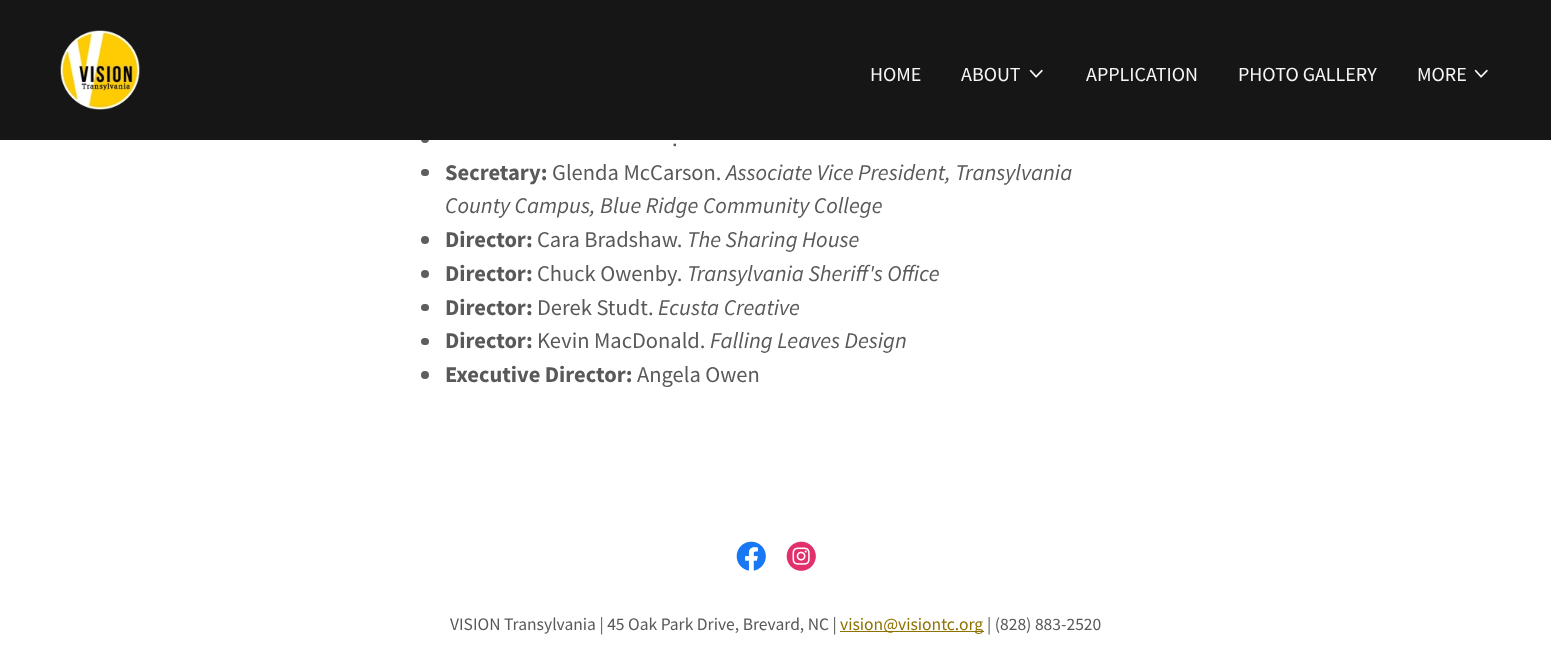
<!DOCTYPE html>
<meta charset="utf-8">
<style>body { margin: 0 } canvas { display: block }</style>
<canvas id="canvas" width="1551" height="663"></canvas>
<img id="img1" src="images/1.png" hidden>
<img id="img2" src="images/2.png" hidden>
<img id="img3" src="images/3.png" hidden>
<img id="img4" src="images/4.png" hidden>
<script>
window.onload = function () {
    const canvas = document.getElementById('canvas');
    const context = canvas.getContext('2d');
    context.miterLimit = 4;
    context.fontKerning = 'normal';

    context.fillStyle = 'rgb(255, 255, 255)';
    context.fillRect(0, 0, 1551, 663);
    context.fillStyle = 'rgb(94, 94, 94)';
    context.beginPath();
    context.arc(425, 139, 4, 0, 2 * Math.PI);
    context.fill();
    context.fillStyle = 'rgb(22, 22, 22)';
    context.fillRect(0, 0, 1551, 140);
    context.drawImage(document.getElementById('img1'), 60, 30, 80, 80);
    context.drawImage(document.getElementById('img2'), 1029, 69, 14, 9);
    context.drawImage(document.getElementById('img2'), 1474, 69, 14, 9);
    context.fillStyle = 'rgb(94, 94, 94)';
    context.beginPath();
    context.roundRect(421, 169, 8, 7, 3.5);
    context.fill();
    context.beginPath();
    context.arc(425, 240, 4, 0, 2 * Math.PI);
    context.fill();
    context.beginPath();
    context.arc(425, 274, 4, 0, 2 * Math.PI);
    context.fill();
    context.beginPath();
    context.roundRect(421, 304, 8, 7, 3.5);
    context.fill();
    context.beginPath();
    context.roundRect(421, 338, 8, 7, 3.5);
    context.fill();
    context.beginPath();
    context.arc(425, 375, 4, 0, 2 * Math.PI);
    context.fill();
    context.drawImage(document.getElementById('img3'), 736, 541, 30, 30);
    context.drawImage(document.getElementById('img4'), 786, 541, 30, 30);
    context.fillStyle = 'rgb(143, 114, 0)';
    context.fillRect(840, 631, 144, 1);
    context.font = '20px Source Sans Pro';
    context.fillStyle = 'rgb(247, 247, 247)';
    context.fillText('HOME', 870, 81);
    context.fillText('ABOUT', 961, 81);
    context.fillText('APPLICATION', 1086, 81);
    context.fillText('PHOTO GALLERY', 1238, 81);
    context.fillText('MORE', 1417, 81);
    context.font = '22.5px Source Sans Pro';
    context.fillStyle = 'rgb(89, 89, 89)';
    context.fillText('.', 672, 146);
    context.font = 'bold 22.5px Source Sans Pro';
    context.fillText('Secretary:', 445, 180);
    context.font = '22.5px Source Sans Pro';
    context.fillText('Glenda McCarson.', 552, 180);
    context.font = 'italic 22.5px Source Sans Pro';
    context.fillText('Associate Vice President, Transylvania', 726, 180);
    context.fillText('County Campus, Blue Ridge Community College', 445, 213);
    context.font = 'bold 22.5px Source Sans Pro';
    context.fillText('Director:', 445, 247);
    context.font = '22.5px Source Sans Pro';
    context.fillText('Cara Bradshaw.', 537, 247);
    context.font = 'italic 22.5px Source Sans Pro';
    context.fillText('The Sharing House', 687, 247);
    context.font = 'bold 22.5px Source Sans Pro';
    context.fillText('Director:', 445, 281);
    context.font = '22.5px Source Sans Pro';
    context.fillText('Chuck Owenby.', 537, 281);
    context.font = 'italic 22.5px Source Sans Pro';
    context.fillText('Transylvania Sheriff\'s Office', 687, 281);
    context.font = 'bold 22.5px Source Sans Pro';
    context.fillText('Director:', 445, 315);
    context.font = '22.5px Source Sans Pro';
    context.fillText('Derek Studt.', 537, 315);
    context.font = 'italic 22.5px Source Sans Pro';
    context.fillText('Ecusta Creative', 658, 315);
    context.font = 'bold 22.5px Source Sans Pro';
    context.fillText('Director:', 445, 348);
    context.font = '22.5px Source Sans Pro';
    context.fillText('Kevin MacDonald.', 537, 348);
    context.font = 'italic 22.5px Source Sans Pro';
    context.fillText('Falling Leaves Design', 710, 348);
    context.font = 'bold 22.5px Source Sans Pro';
    context.fillText('Executive Director:', 445, 382);
    context.font = '22.5px Source Sans Pro';
    context.fillText('Angela Owen', 637, 382);
    context.font = '17.5px Source Sans Pro';
    context.fillText('VISION Transylvania | 45 Oak Park Drive, Brevard, NC |', 450, 630);
    context.fillStyle = 'rgb(143, 114, 0)';
    context.fillText('vision@visiontc.org', 840, 630);
    context.fillStyle = 'rgb(89, 89, 89)';
    context.fillText('| (828) 883-2520', 987, 630);
};
</script>
